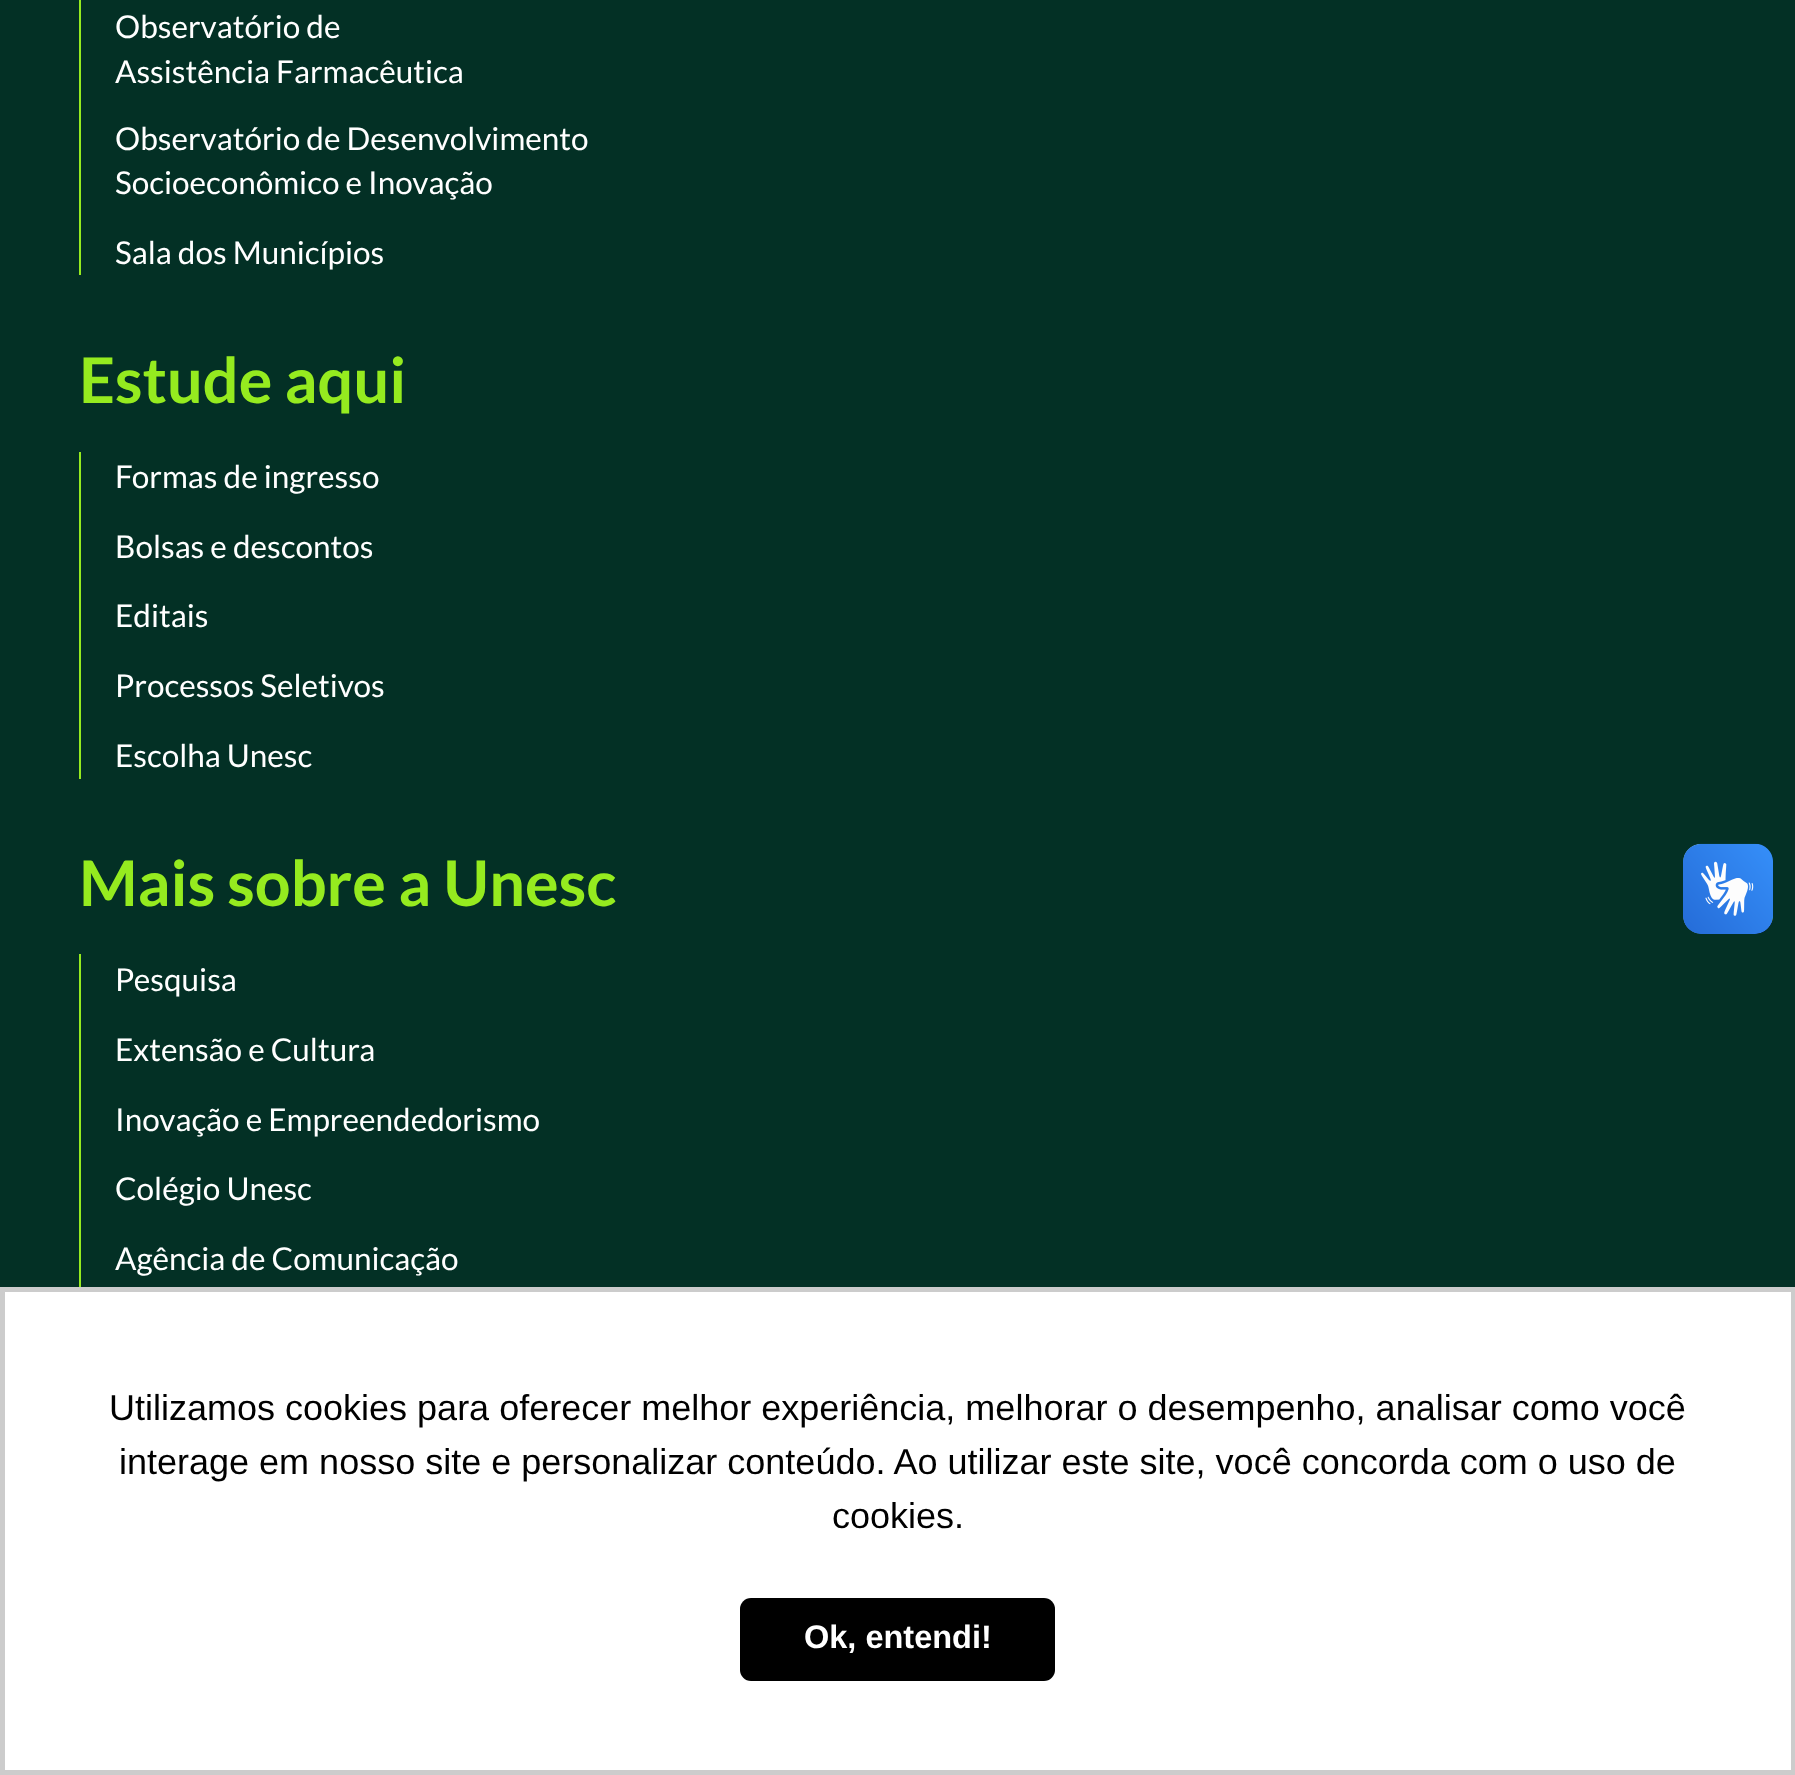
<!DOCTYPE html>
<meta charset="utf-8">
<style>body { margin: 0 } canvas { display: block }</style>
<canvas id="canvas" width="1795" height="1775"></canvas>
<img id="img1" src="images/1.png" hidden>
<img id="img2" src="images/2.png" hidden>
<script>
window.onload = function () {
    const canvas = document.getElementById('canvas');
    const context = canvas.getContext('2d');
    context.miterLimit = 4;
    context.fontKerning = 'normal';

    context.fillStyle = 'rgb(3, 48, 37)';
    context.fillRect(0, 0, 1795, 1775);
    context.fillStyle = 'rgb(149, 235, 31)';
    context.fillRect(79, 0, 2, 275);
    context.fillRect(79, 452, 2, 327);
    context.fillRect(79, 954, 2, 333);
    context.drawImage(document.getElementById('img1'), 1683, 843, 90, 91);
    context.drawImage(document.getElementById('img2'), 1683, 844, 90, 90);
    context.fillStyle = 'rgb(255, 255, 255)';
    context.beginPath();
    context.rect(2.5, 1289.5, 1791, 483);
    context.fill();
    context.strokeStyle = 'rgb(204, 204, 204)';
    context.lineWidth = 5;
    context.stroke();
    context.fillStyle = 'rgb(0, 0, 0)';
    context.beginPath();
    context.roundRect(740, 1598, 315, 83, 11);
    context.fill();
    context.font = '31.5px Lato';
    context.fillStyle = 'rgb(255, 255, 255)';
    context.fillText('Observatório de', 115, 38);
    context.fillText('Assistência Farmacêutica', 115, 83);
    context.fillText('Observatório de Desenvolvimento', 115, 150);
    context.fillText('Socioeconômico e Inovação', 115, 194);
    context.fillText('Sala dos Municípios', 115, 264);
    context.font = 'bold 63px Lato';
    context.fillStyle = 'rgb(149, 235, 31)';
    context.fillText('Estude aqui', 79, 403);
    context.font = '31.5px Lato';
    context.fillStyle = 'rgb(255, 255, 255)';
    context.fillText('Formas de ingresso', 115, 488);
    context.fillText('Bolsas e descontos', 115, 558);
    context.fillText('Editais', 115, 627);
    context.fillText('Processos Seletivos', 115, 697);
    context.fillText('Escolha Unesc', 115, 767);
    context.font = 'bold 63px Lato';
    context.fillStyle = 'rgb(149, 235, 31)';
    context.fillText('Mais sobre a Unesc', 79, 906);
    context.font = '31.5px Lato';
    context.fillStyle = 'rgb(255, 255, 255)';
    context.fillText('Pesquisa', 115, 991);
    context.fillText('Extensão e Cultura', 115, 1061);
    context.fillText('Inovação e Empreendedorismo', 115, 1131);
    context.fillText('Colégio Unesc', 115, 1200);
    context.fillText('Agência de Comunicação', 115, 1270);
    context.font = '36px Liberation Sans';
    context.fillStyle = 'rgb(0, 0, 0)';
    context.fillText('Utilizamos cookies para oferecer melhor experiência, melhorar o desempenho, analisar como você', 109, 1420);
    context.fillText('interage em nosso site e personalizar conteúdo. Ao utilizar este site, você concorda com o uso de', 119, 1474);
    context.fillText('cookies.', 832, 1528);
    context.font = 'bold 32.5px Liberation Sans';
    context.fillStyle = 'rgb(255, 255, 255)';
    context.fillText('Ok, entendi!', 804, 1648);
};
</script>
